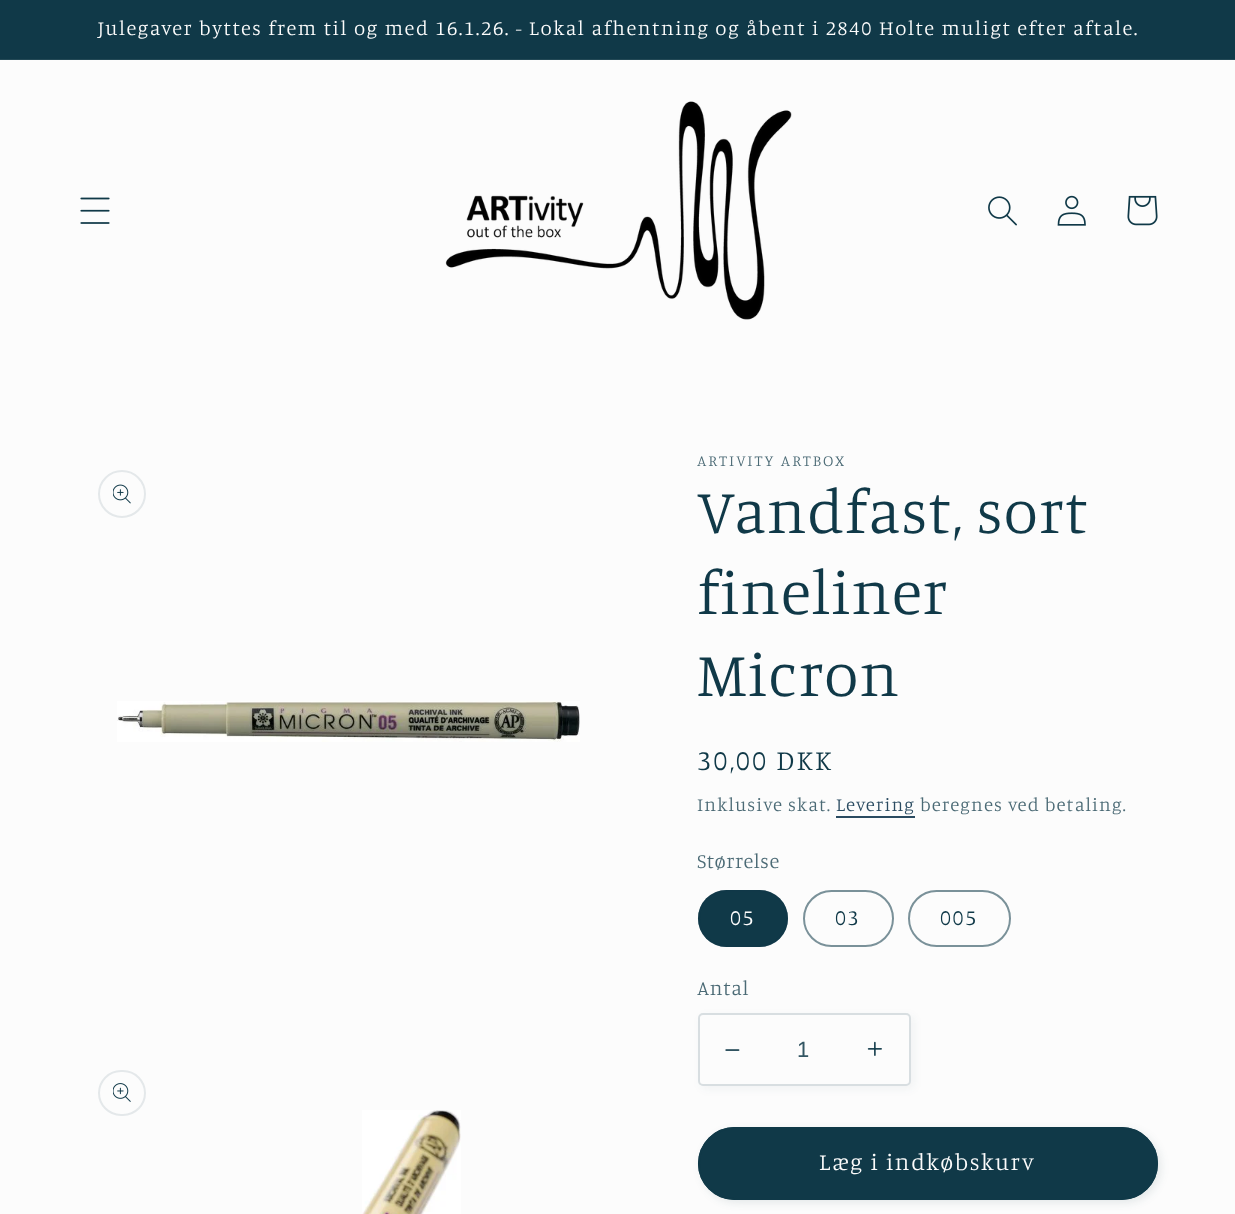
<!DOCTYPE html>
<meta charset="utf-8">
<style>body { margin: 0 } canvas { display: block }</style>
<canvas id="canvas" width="1235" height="1214"></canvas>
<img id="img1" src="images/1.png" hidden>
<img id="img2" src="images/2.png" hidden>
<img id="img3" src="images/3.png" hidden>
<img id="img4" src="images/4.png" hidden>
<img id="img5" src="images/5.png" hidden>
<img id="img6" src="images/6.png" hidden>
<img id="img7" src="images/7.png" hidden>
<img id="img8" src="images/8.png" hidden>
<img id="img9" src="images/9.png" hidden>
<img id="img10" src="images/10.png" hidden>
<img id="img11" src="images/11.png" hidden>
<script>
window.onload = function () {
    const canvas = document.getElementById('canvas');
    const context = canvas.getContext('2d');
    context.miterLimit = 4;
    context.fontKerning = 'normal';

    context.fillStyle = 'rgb(252, 252, 252)';
    context.fillRect(0, 0, 1235, 1214);
    context.fillStyle = 'rgb(16, 57, 72)';
    context.fillRect(0, 0, 1235, 59);
    context.fillStyle = 'rgb(35, 73, 86)';
    context.fillRect(0, 59, 1235, 1);
    context.drawImage(document.getElementById('img1'), 80, 197, 30, 27);
    context.drawImage(document.getElementById('img2'), 445, 101, 347, 219);
    context.drawImage(document.getElementById('img3'), 988, 196, 29, 30);
    context.drawImage(document.getElementById('img4'), 1057, 195, 29, 31);
    context.drawImage(document.getElementById('img5'), 1127, 195, 31, 31);
    context.beginPath();
    context.arc(122, 494, 23, 0, 2 * Math.PI);
    context.strokeStyle = 'rgb(228, 232, 234)';
    context.lineWidth = 2;
    context.stroke();
    context.drawImage(document.getElementById('img6'), 113, 484, 18, 20);
    context.drawImage(document.getElementById('img7'), 117, 701, 463, 41);
    context.beginPath();
    context.roundRect(99, 1071, 46, 44, 22);
    context.stroke();
    context.drawImage(document.getElementById('img8'), 113, 1083, 18, 19);
    context.drawImage(document.getElementById('img9'), 362, 1110, 99, 104);
    context.fillStyle = 'rgb(42, 75, 97)';
    context.fillRect(836, 816, 79, 2);
    context.fillStyle = 'rgb(16, 57, 72)';
    context.beginPath();
    context.roundRect(698, 890, 90, 57, 28.5);
    context.fill();
    context.beginPath();
    context.roundRect(699, 891, 88, 55, 27.5);
    context.strokeStyle = 'rgba(16, 57, 72, 0.55)';
    context.stroke();
    context.beginPath();
    context.roundRect(804, 891, 89, 55, 27.5);
    context.strokeStyle = 'rgb(122, 145, 153)';
    context.stroke();
    context.beginPath();
    context.roundRect(909, 891, 101, 55, 27.5);
    context.stroke();
    context.fillStyle = 'rgba(16, 57, 72, 0.05)';
    context.filter = 'blur(4px)';
    context.beginPath();
    context.roundRect(701, 1016, 213, 73, 5);
    context.fill();
    context.filter = 'none';
    context.fillStyle = 'rgb(252, 252, 252)';
    context.beginPath();
    context.roundRect(698, 1013, 213, 73, 5);
    context.fill();
    context.drawImage(document.getElementById('img10'), 725, 1049, 15, 2);
    context.drawImage(document.getElementById('img11'), 867, 1041, 15, 15);
    context.beginPath();
    context.roundRect(699, 1014, 211, 71, 4);
    context.strokeStyle = 'rgba(16, 57, 72, 0.15)';
    context.stroke();
    context.fillStyle = 'rgba(16, 57, 72, 0.1)';
    context.filter = 'blur(4px)';
    context.beginPath();
    context.roundRect(701, 1130, 460, 73, 36.5);
    context.fill();
    context.filter = 'none';
    context.fillStyle = 'rgb(16, 57, 72)';
    context.beginPath();
    context.roundRect(698, 1127, 460, 73, 36.5);
    context.fill();
    context.beginPath();
    context.roundRect(699, 1128, 458, 71, 35.5);
    context.strokeStyle = 'rgb(16, 57, 72)';
    context.stroke();
    context.letterSpacing = '1.58px';
    context.font = '300 20.48px Manuale';
    context.fillStyle = 'rgb(252, 252, 252)';
    context.fillText('Julegaver byttes frem til og med 16.1.26. - Lokal afhentning og åbent i 2840 Holte muligt efter aftale.', 98, 35);
    context.letterSpacing = '2px';
    context.font = '300 15.75px Manuale';
    context.fillStyle = 'rgb(75, 106, 117)';
    context.fillText('ARTIVITY ARTBOX', 697, 466);
    context.letterSpacing = '1px';
    context.font = '300 63px Manuale';
    context.fillStyle = 'rgb(16, 57, 72)';
    context.fillText('Vandfast, sort', 697, 533);
    context.fillText('fineliner', 697, 614);
    context.fillText('Micron', 697, 696);
    context.letterSpacing = '2px';
    context.font = '300 28.5px Manuale';
    context.fillText('30,00 DKK', 697, 770);
    context.letterSpacing = '1.1px';
    context.font = '300 18.9px Manuale';
    context.fillStyle = 'rgb(75, 106, 117)';
    context.fillText('Inklusive skat.', 697, 811);
    context.fillStyle = 'rgb(42, 75, 97)';
    context.fillText('Levering', 836, 811);
    context.fillStyle = 'rgb(75, 106, 117)';
    context.fillText('beregnes ved betaling.', 920, 811);
    context.letterSpacing = '0.6px';
    context.font = '300 20.48px Manuale';
    context.fillText('Størrelse', 697, 868);
    context.letterSpacing = '1.58px';
    context.font = '300 22px Manuale';
    context.fillStyle = 'rgb(252, 252, 252)';
    context.fillText('05', 730, 925);
    context.fillStyle = 'rgb(16, 57, 72)';
    context.fillText('03', 835, 925);
    context.fillText('005', 940, 925);
    context.letterSpacing = '0.6px';
    context.font = '300 20.48px Manuale';
    context.fillStyle = 'rgb(75, 106, 117)';
    context.fillText('Antal', 697, 995);
    context.letterSpacing = '0px';
    context.font = '22px Liberation Sans';
    context.fillStyle = 'rgb(51, 86, 99)';
    context.fillText('1', 797, 1057);
    context.letterSpacing = '1.58px';
    context.font = '300 23.6px Manuale';
    context.fillStyle = 'rgb(252, 252, 252)';
    context.fillText('Læg i indkøbskurv', 819, 1170);
};
</script>
